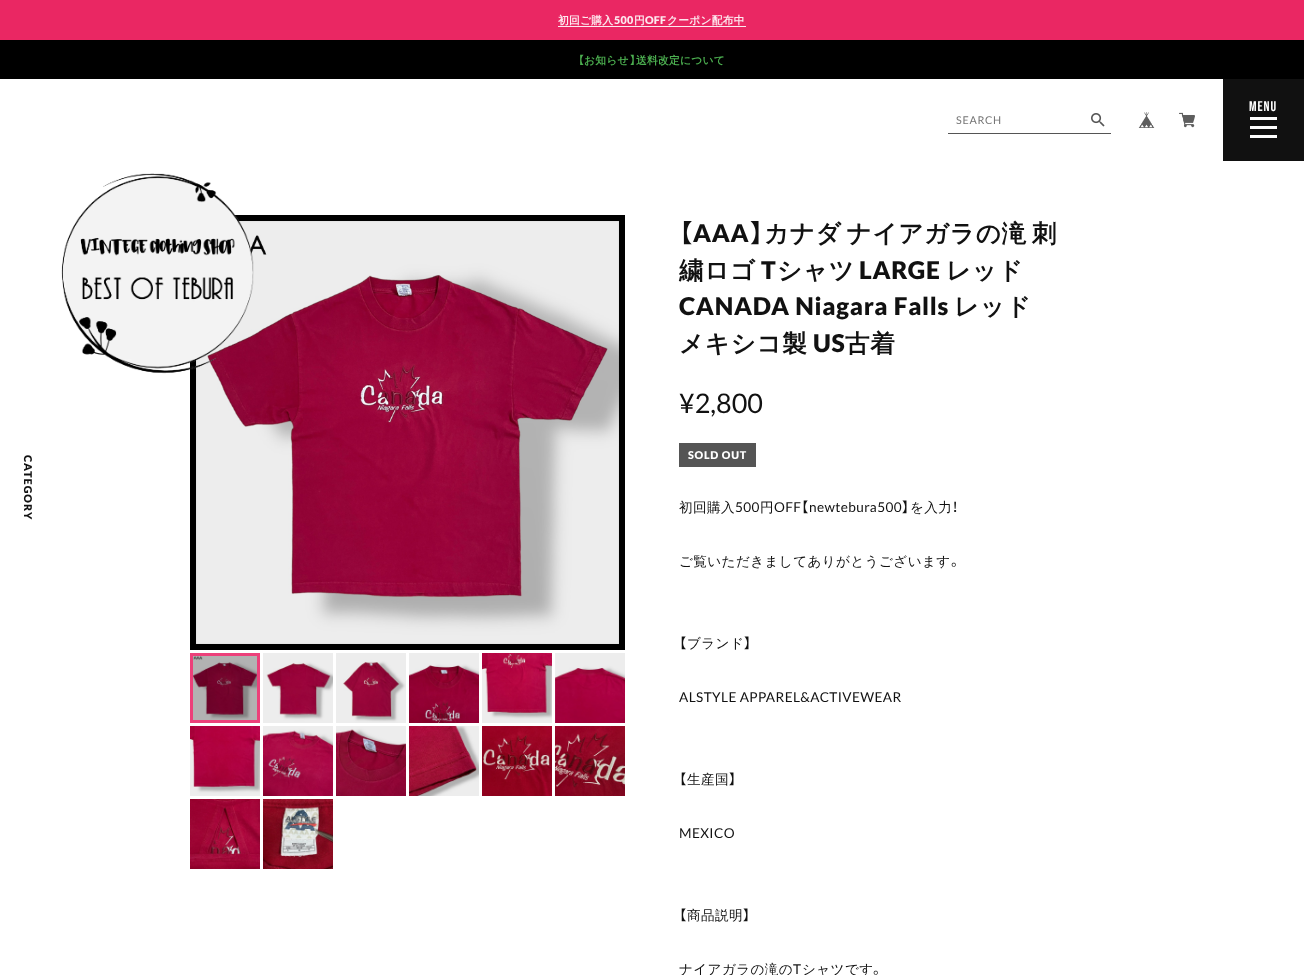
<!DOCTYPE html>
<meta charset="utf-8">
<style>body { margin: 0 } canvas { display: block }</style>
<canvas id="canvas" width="1304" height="975"></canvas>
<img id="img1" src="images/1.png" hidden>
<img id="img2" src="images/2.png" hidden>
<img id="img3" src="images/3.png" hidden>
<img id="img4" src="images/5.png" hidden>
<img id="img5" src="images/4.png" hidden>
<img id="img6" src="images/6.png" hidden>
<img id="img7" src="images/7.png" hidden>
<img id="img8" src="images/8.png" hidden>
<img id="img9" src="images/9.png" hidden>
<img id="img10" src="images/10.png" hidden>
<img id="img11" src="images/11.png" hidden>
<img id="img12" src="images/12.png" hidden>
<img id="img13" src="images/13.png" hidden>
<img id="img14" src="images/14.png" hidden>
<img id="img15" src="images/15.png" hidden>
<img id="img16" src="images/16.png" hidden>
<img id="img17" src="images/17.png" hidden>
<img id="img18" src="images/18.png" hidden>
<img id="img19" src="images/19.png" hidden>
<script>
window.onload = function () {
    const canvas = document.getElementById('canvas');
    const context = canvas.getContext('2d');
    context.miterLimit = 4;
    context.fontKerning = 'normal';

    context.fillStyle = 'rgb(255, 255, 255)';
    context.fillRect(0, 0, 1304, 975);
    context.fillStyle = 'rgb(234, 39, 99)';
    context.fillRect(0, 0, 1304, 40);
    context.fillStyle = 'rgb(253, 233, 239)';
    context.fillRect(558, 26, 188, 1);
    context.fillStyle = 'rgb(0, 0, 0)';
    context.fillRect(0, 40, 1304, 39);
    context.fillStyle = 'rgb(17, 17, 17)';
    context.fillRect(1223, 79, 81, 82);
    context.fillStyle = 'rgb(255, 255, 255)';
    context.fillRect(1250, 117, 27, 3);
    context.fillRect(1250, 126, 27, 3);
    context.fillRect(1250, 135, 27, 3);
    context.drawImage(document.getElementById('img1'), 1091, 113, 14, 14);
    context.fillStyle = 'rgb(85, 85, 85)';
    context.fillRect(948, 133, 163, 1);
    context.drawImage(document.getElementById('img2'), 1138, 112, 17, 16);
    context.drawImage(document.getElementById('img3'), 1179, 112, 16, 16);
    context.drawImage(document.getElementById('img4'), 190, 215, 435, 435);
    context.drawImage(document.getElementById('img5'), 61, 173, 193, 201);
    context.drawImage(document.getElementById('img6'), 193, 656, 64, 64);
    context.strokeStyle = 'rgb(236, 64, 122)';
    context.lineWidth = 3;
    context.strokeRect(191.5, 654.5, 67, 67);
    context.drawImage(document.getElementById('img7'), 263, 653, 70, 70);
    context.drawImage(document.getElementById('img8'), 336, 653, 70, 70);
    context.drawImage(document.getElementById('img9'), 409, 653, 70, 70);
    context.drawImage(document.getElementById('img10'), 482, 653, 70, 70);
    context.drawImage(document.getElementById('img11'), 555, 653, 70, 70);
    context.drawImage(document.getElementById('img12'), 190, 726, 70, 70);
    context.drawImage(document.getElementById('img13'), 263, 726, 70, 70);
    context.drawImage(document.getElementById('img14'), 336, 726, 70, 70);
    context.drawImage(document.getElementById('img15'), 409, 726, 70, 70);
    context.drawImage(document.getElementById('img16'), 482, 726, 70, 70);
    context.drawImage(document.getElementById('img17'), 555, 726, 70, 70);
    context.drawImage(document.getElementById('img18'), 190, 799, 70, 70);
    context.drawImage(document.getElementById('img19'), 263, 799, 70, 70);
    context.fillRect(679, 443, 77, 24);
    context.letterSpacing = '0.25px';
    context.font = 'bold 10.75px WenQuanYi Zen Hei';
    context.fillStyle = 'rgb(253, 233, 239)';
    context.fillText('初回ご購入', 558, 24);
    context.font = '900 10.75px Lato';
    context.fillText('500', 614, 24);
    context.font = 'bold 10.75px WenQuanYi Zen Hei';
    context.fillText('円', 634, 24);
    context.font = '900 10.75px Lato';
    context.fillText('OFF', 645, 24);
    context.font = 'bold 10.75px WenQuanYi Zen Hei';
    context.fillText('クーポン配布中', 667, 24);
    context.font = '900 10.75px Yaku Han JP';
    context.fillStyle = 'rgb(76, 175, 80)';
    context.fillText('【', 578, 64);
    context.font = 'bold 10.75px WenQuanYi Zen Hei';
    context.fillText('お知らせ', 584, 64);
    context.font = '900 10.75px Yaku Han JP';
    context.fillText('】', 630, 64);
    context.font = 'bold 10.75px WenQuanYi Zen Hei';
    context.fillText('送料改定について', 636, 64);
    context.letterSpacing = '1px';
    context.font = '14px Bebas Neue';
    context.fillStyle = 'rgb(255, 255, 255)';
    context.fillText('MENU', 1249, 111);
    context.letterSpacing = '0.75px';
    context.font = '10.75px Lato';
    context.fillStyle = 'rgb(117, 117, 117)';
    context.fillText('SEARCH', 956, 124);
    context.letterSpacing = '1px';
    context.font = '900 10.75px Lato';
    context.fillStyle = 'rgb(17, 17, 17)';
    context.save();
    context.translate(24, 455);
    context.rotate(90 * Math.PI / 180);
    context.fillText('CATEGORY', 0, 0);
    context.restore();
    context.letterSpacing = '0.75px';
    context.font = '900 24.5px Yaku Han JP';
    context.fillText('【', 679, 242);
    context.font = '900 24.5px Lato';
    context.fillText('AAA', 693, 242);
    context.font = '900 24.5px Yaku Han JP';
    context.fillText('】', 750, 242);
    context.wordSpacing = '-3px';
    context.font = 'bold 24.5px WenQuanYi Zen Hei';
    context.fillText('カナダ ナイアガラの滝 刺', 764, 242);
    context.wordSpacing = '0px';
    context.fillText('繍ロゴ', 679, 279);
    context.font = '900 24.5px Lato';
    context.fillText('T', 761, 279);
    context.font = 'bold 24.5px WenQuanYi Zen Hei';
    context.fillText('シャツ', 777, 279);
    context.font = '900 24.5px Lato';
    context.fillText('LARGE', 859, 279);
    context.font = 'bold 24.5px WenQuanYi Zen Hei';
    context.fillText('レッド', 946, 279);
    context.font = '900 24.5px Lato';
    context.fillText('CANADA Niagara Falls', 679, 315);
    context.font = 'bold 24.5px WenQuanYi Zen Hei';
    context.fillText('レッド', 954, 315);
    context.fillText('メキシコ製', 679, 352);
    context.font = '900 24.5px Lato';
    context.fillText('US', 813, 352);
    context.font = 'bold 24.5px WenQuanYi Zen Hei';
    context.fillText('古着', 845, 352);
    context.letterSpacing = '0px';
    context.font = '27px Lato';
    context.fillText('¥2,800', 679, 413);
    context.letterSpacing = '0.75px';
    context.font = '900 10.75px Lato';
    context.fillStyle = 'rgb(255, 255, 255)';
    context.fillText('SOLD OUT', 688, 459);
    context.letterSpacing = '0.4px';
    context.font = '500 13.6px WenQuanYi Zen Hei';
    context.fillStyle = 'rgb(17, 17, 17)';
    context.fillText('初回購入', 679, 512);
    context.font = '13.6px Lato';
    context.fillText('500', 735, 512);
    context.font = '500 13.6px WenQuanYi Zen Hei';
    context.fillText('円', 760, 512);
    context.font = '13.6px Lato';
    context.fillText('OFF', 774, 512);
    context.font = '13.6px Yaku Han JP';
    context.fillText('【', 801, 512);
    context.font = '13.6px Lato';
    context.fillText('newtebura500', 809, 512);
    context.font = '13.6px Yaku Han JP';
    context.fillText('】', 902, 512);
    context.font = '500 13.6px WenQuanYi Zen Hei';
    context.fillText('を入力', 910, 512);
    context.font = '13.6px Yaku Han JP';
    context.fillText('！', 952, 512);
    context.font = '500 13.6px WenQuanYi Zen Hei';
    context.fillText('ご覧いただきましてありがとうございます', 679, 566);
    context.font = '13.6px Yaku Han JP';
    context.fillText('。', 951, 566);
    context.fillText('【', 679, 648);
    context.font = '500 13.6px WenQuanYi Zen Hei';
    context.fillText('ブランド', 687, 648);
    context.font = '13.6px Yaku Han JP';
    context.fillText('】', 744, 648);
    context.font = '13.6px Lato';
    context.fillText('ALSTYLE APPAREL&ACTIVEWEAR', 679, 702);
    context.font = '13.6px Yaku Han JP';
    context.fillText('【', 679, 784);
    context.font = '500 13.6px WenQuanYi Zen Hei';
    context.fillText('生産国', 687, 784);
    context.font = '13.6px Yaku Han JP';
    context.fillText('】', 729, 784);
    context.font = '13.6px Lato';
    context.fillText('MEXICO', 679, 838);
    context.font = '13.6px Yaku Han JP';
    context.fillText('【', 679, 920);
    context.font = '500 13.6px WenQuanYi Zen Hei';
    context.fillText('商品説明', 687, 920);
    context.font = '13.6px Yaku Han JP';
    context.fillText('】', 743, 920);
    context.font = '500 13.6px WenQuanYi Zen Hei';
    context.fillText('ナイアガラの滝の', 679, 974);
    context.font = '13.6px Lato';
    context.fillText('T', 793, 974);
    context.font = '500 13.6px WenQuanYi Zen Hei';
    context.fillText('シャツです', 802, 974);
    context.font = '13.6px Yaku Han JP';
    context.fillText('。', 873, 974);
};
</script>
